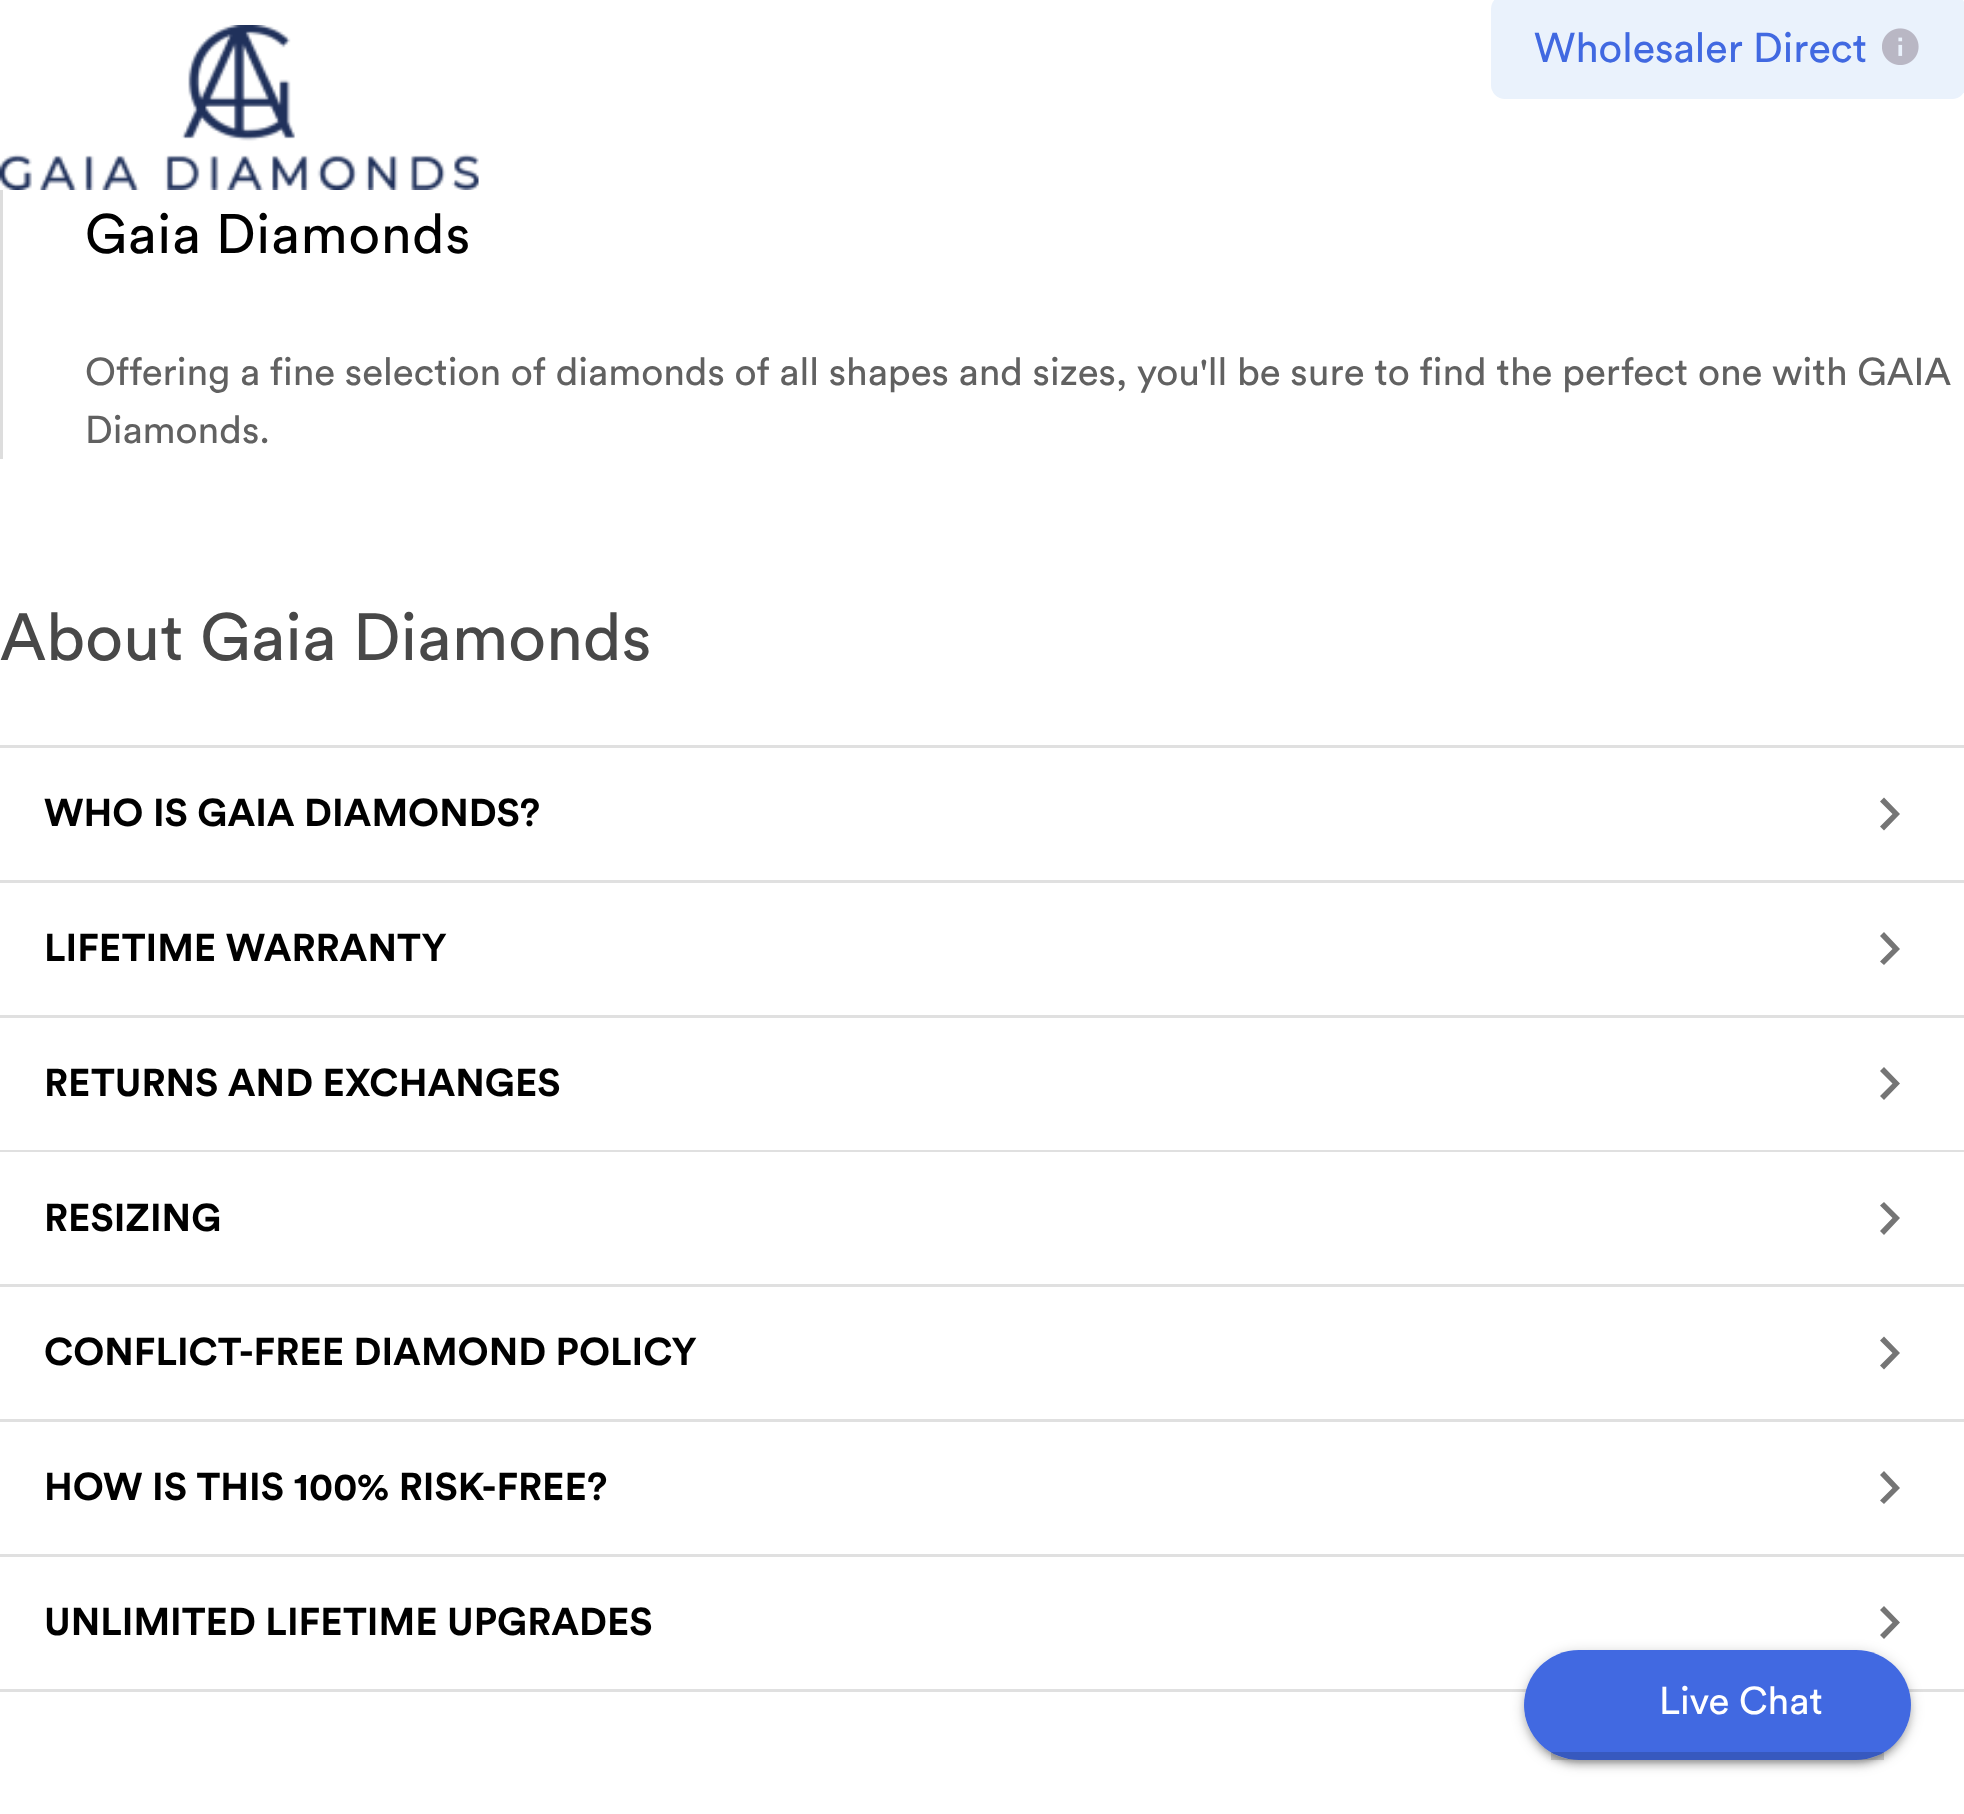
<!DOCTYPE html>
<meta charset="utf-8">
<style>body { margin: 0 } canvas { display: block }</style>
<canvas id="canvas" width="1964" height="1814"></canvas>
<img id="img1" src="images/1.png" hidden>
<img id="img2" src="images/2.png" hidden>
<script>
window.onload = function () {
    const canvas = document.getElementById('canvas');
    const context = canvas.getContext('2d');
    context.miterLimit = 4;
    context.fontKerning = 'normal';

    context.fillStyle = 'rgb(255, 255, 255)';
    context.fillRect(0, 0, 1964, 1814);
    context.drawImage(document.getElementById('img1'), 0, 25, 479, 165);
    context.fillStyle = 'rgb(221, 221, 221)';
    context.fillRect(0, 190, 3, 269);
    context.fillStyle = 'rgb(234, 242, 252)';
    context.beginPath();
    context.roundRect(1491, -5, 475, 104, 14);
    context.fill();
    context.drawImage(document.getElementById('img2'), 1882, 28, 37, 37);
    context.fillStyle = 'rgb(224, 224, 224)';
    context.fillRect(0, 745, 1964, 3);
    context.fillStyle = 'rgb(117, 117, 117)';
    context.beginPath();
    context.moveTo(1880, 826.5);
    context.lineTo(1892.5, 814);
    context.lineTo(1880, 801.5);
    context.lineTo(1884, 797.5);
    context.lineTo(1900, 814);
    context.lineTo(1884, 830.5);
    context.closePath();
    context.fill();
    context.fillStyle = 'rgb(224, 224, 224)';
    context.fillRect(0, 880, 1964, 3);
    context.fillStyle = 'rgb(117, 117, 117)';
    context.beginPath();
    context.moveTo(1880, 961.5);
    context.lineTo(1892.5, 949);
    context.lineTo(1880, 936);
    context.lineTo(1884, 932);
    context.lineTo(1900, 949);
    context.lineTo(1884, 965);
    context.closePath();
    context.fill();
    context.fillStyle = 'rgb(224, 224, 224)';
    context.fillRect(0, 1015, 1964, 3);
    context.fillStyle = 'rgb(117, 117, 117)';
    context.beginPath();
    context.moveTo(1880, 1096);
    context.lineTo(1892.5, 1083.5);
    context.lineTo(1880, 1071);
    context.lineTo(1884, 1067);
    context.lineTo(1900, 1083.5);
    context.lineTo(1884, 1100);
    context.closePath();
    context.fill();
    context.fillStyle = 'rgb(224, 224, 224)';
    context.fillRect(0, 1150, 1964, 2);
    context.fillStyle = 'rgb(117, 117, 117)';
    context.beginPath();
    context.moveTo(1880, 1231);
    context.lineTo(1892.5, 1218);
    context.lineTo(1880, 1205.5);
    context.lineTo(1884, 1202);
    context.lineTo(1900, 1218);
    context.lineTo(1884, 1235);
    context.closePath();
    context.fill();
    context.fillStyle = 'rgb(224, 224, 224)';
    context.fillRect(0, 1284, 1964, 3);
    context.fillStyle = 'rgb(117, 117, 117)';
    context.beginPath();
    context.moveTo(1880, 1365.5);
    context.lineTo(1892.5, 1353);
    context.lineTo(1880, 1340.5);
    context.lineTo(1884, 1336.5);
    context.lineTo(1900, 1353);
    context.lineTo(1884, 1369.5);
    context.closePath();
    context.fill();
    context.fillStyle = 'rgb(224, 224, 224)';
    context.fillRect(0, 1419, 1964, 3);
    context.fillStyle = 'rgb(117, 117, 117)';
    context.beginPath();
    context.moveTo(1880, 1500.5);
    context.lineTo(1892.5, 1488);
    context.lineTo(1880, 1475);
    context.lineTo(1884, 1471);
    context.lineTo(1900, 1488);
    context.lineTo(1884, 1504);
    context.closePath();
    context.fill();
    context.fillStyle = 'rgb(224, 224, 224)';
    context.fillRect(0, 1554, 1964, 3);
    context.fillStyle = 'rgb(117, 117, 117)';
    context.beginPath();
    context.moveTo(1880, 1635);
    context.lineTo(1892.5, 1622.5);
    context.lineTo(1880, 1610);
    context.lineTo(1884, 1606);
    context.lineTo(1900, 1622.5);
    context.lineTo(1884, 1639);
    context.closePath();
    context.fill();
    context.fillStyle = 'rgb(224, 224, 224)';
    context.fillRect(0, 1689, 1964, 3);
    context.fillStyle = 'rgb(65, 105, 225)';
    context.beginPath();
    context.roundRect(1524, 1650, 387, 110, 55);
    context.fill();
    context.save();
    context.beginPath();
    context.moveTo(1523, 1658);
    context.lineTo(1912, 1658);
    context.lineTo(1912, 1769);
    context.lineTo(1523, 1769);
    context.closePath();
    context.moveTo(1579, 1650);
    context.lineTo(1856, 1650);
    context.bezierCurveTo(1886.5, 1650, 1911, 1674.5, 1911, 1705);
    context.bezierCurveTo(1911, 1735.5, 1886.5, 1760, 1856, 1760);
    context.lineTo(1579, 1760);
    context.bezierCurveTo(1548.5, 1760, 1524, 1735.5, 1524, 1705);
    context.bezierCurveTo(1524, 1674.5, 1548.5, 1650, 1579, 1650);
    context.closePath();
    context.clip('evenodd');
    context.fillStyle = 'rgba(0, 0, 0, 0.12)';
    context.filter = 'blur(1.5px)';
    context.beginPath();
    context.roundRect(1529, 1664, 377, 99, 49.5);
    context.fill();
    context.filter = 'none';
    context.restore();
    context.save();
    context.beginPath();
    context.moveTo(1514, 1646);
    context.lineTo(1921, 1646);
    context.lineTo(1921, 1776);
    context.lineTo(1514, 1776);
    context.closePath();
    context.moveTo(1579, 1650);
    context.lineTo(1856, 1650);
    context.bezierCurveTo(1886.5, 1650, 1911, 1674.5, 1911, 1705);
    context.bezierCurveTo(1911, 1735.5, 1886.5, 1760, 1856, 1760);
    context.lineTo(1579, 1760);
    context.bezierCurveTo(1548.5, 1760, 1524, 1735.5, 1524, 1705);
    context.bezierCurveTo(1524, 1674.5, 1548.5, 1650, 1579, 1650);
    context.closePath();
    context.clip('evenodd');
    context.fillStyle = 'rgba(0, 0, 0, 0.14)';
    context.filter = 'blur(3px)';
    context.beginPath();
    context.roundRect(1524, 1656, 387, 110, 55);
    context.fill();
    context.filter = 'none';
    context.restore();
    context.save();
    context.beginPath();
    context.moveTo(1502, 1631);
    context.lineTo(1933, 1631);
    context.lineTo(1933, 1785);
    context.lineTo(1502, 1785);
    context.closePath();
    context.moveTo(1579, 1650);
    context.lineTo(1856, 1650);
    context.bezierCurveTo(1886.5, 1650, 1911, 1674.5, 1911, 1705);
    context.bezierCurveTo(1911, 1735.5, 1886.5, 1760, 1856, 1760);
    context.lineTo(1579, 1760);
    context.bezierCurveTo(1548.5, 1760, 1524, 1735.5, 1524, 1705);
    context.bezierCurveTo(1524, 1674.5, 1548.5, 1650, 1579, 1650);
    context.closePath();
    context.clip('evenodd');
    context.fillStyle = 'rgba(0, 0, 0, 0.2)';
    context.filter = 'blur(7px)';
    context.beginPath();
    context.roundRect(1524, 1653, 387, 110, 55);
    context.fill();
    context.filter = 'none';
    context.restore();
    context.fillStyle = 'rgba(0, 0, 0, 0.15)';
    context.fillRect(1551, 1752, 333, 8);
    context.font = '41.25px Circular';
    context.fillStyle = 'rgb(65, 105, 225)';
    context.fillText('Wholesaler Direct', 1534, 62);
    context.letterSpacing = '0.75px';
    context.font = '55px Circular';
    context.fillStyle = 'rgb(0, 0, 0)';
    context.fillText('Gaia Diamonds', 85, 253);
    context.letterSpacing = '0px';
    context.font = '38.5px Circular';
    context.fillStyle = 'rgb(97, 97, 97)';
    context.fillText('Offering a fine selection of diamonds of all shapes and sizes, you\'ll be sure to find the perfect one with GAIA', 85, 385);
    context.fillText('Diamonds.', 85, 443);
    context.font = '66px Circular';
    context.fillStyle = 'rgb(72, 72, 72)';
    context.fillText('About Gaia Diamonds', 0, 660);
    context.font = 'bold 38.5px Circular';
    context.fillStyle = 'rgb(0, 0, 0)';
    context.fillText('WHO IS GAIA DIAMONDS?', 44, 826);
    context.fillText('LIFETIME WARRANTY', 44, 961);
    context.fillText('RETURNS AND EXCHANGES', 44, 1096);
    context.fillText('RESIZING', 44, 1231);
    context.fillText('CONFLICT-FREE DIAMOND POLICY', 44, 1365);
    context.fillText('HOW IS THIS 100% RISK-FREE?', 44, 1500);
    context.fillText('UNLIMITED LIFETIME UPGRADES', 44, 1635);
    context.font = '38.5px Circular';
    context.fillStyle = 'rgb(255, 255, 255)';
    context.fillText('Live Chat', 1659, 1714);
};
</script>
